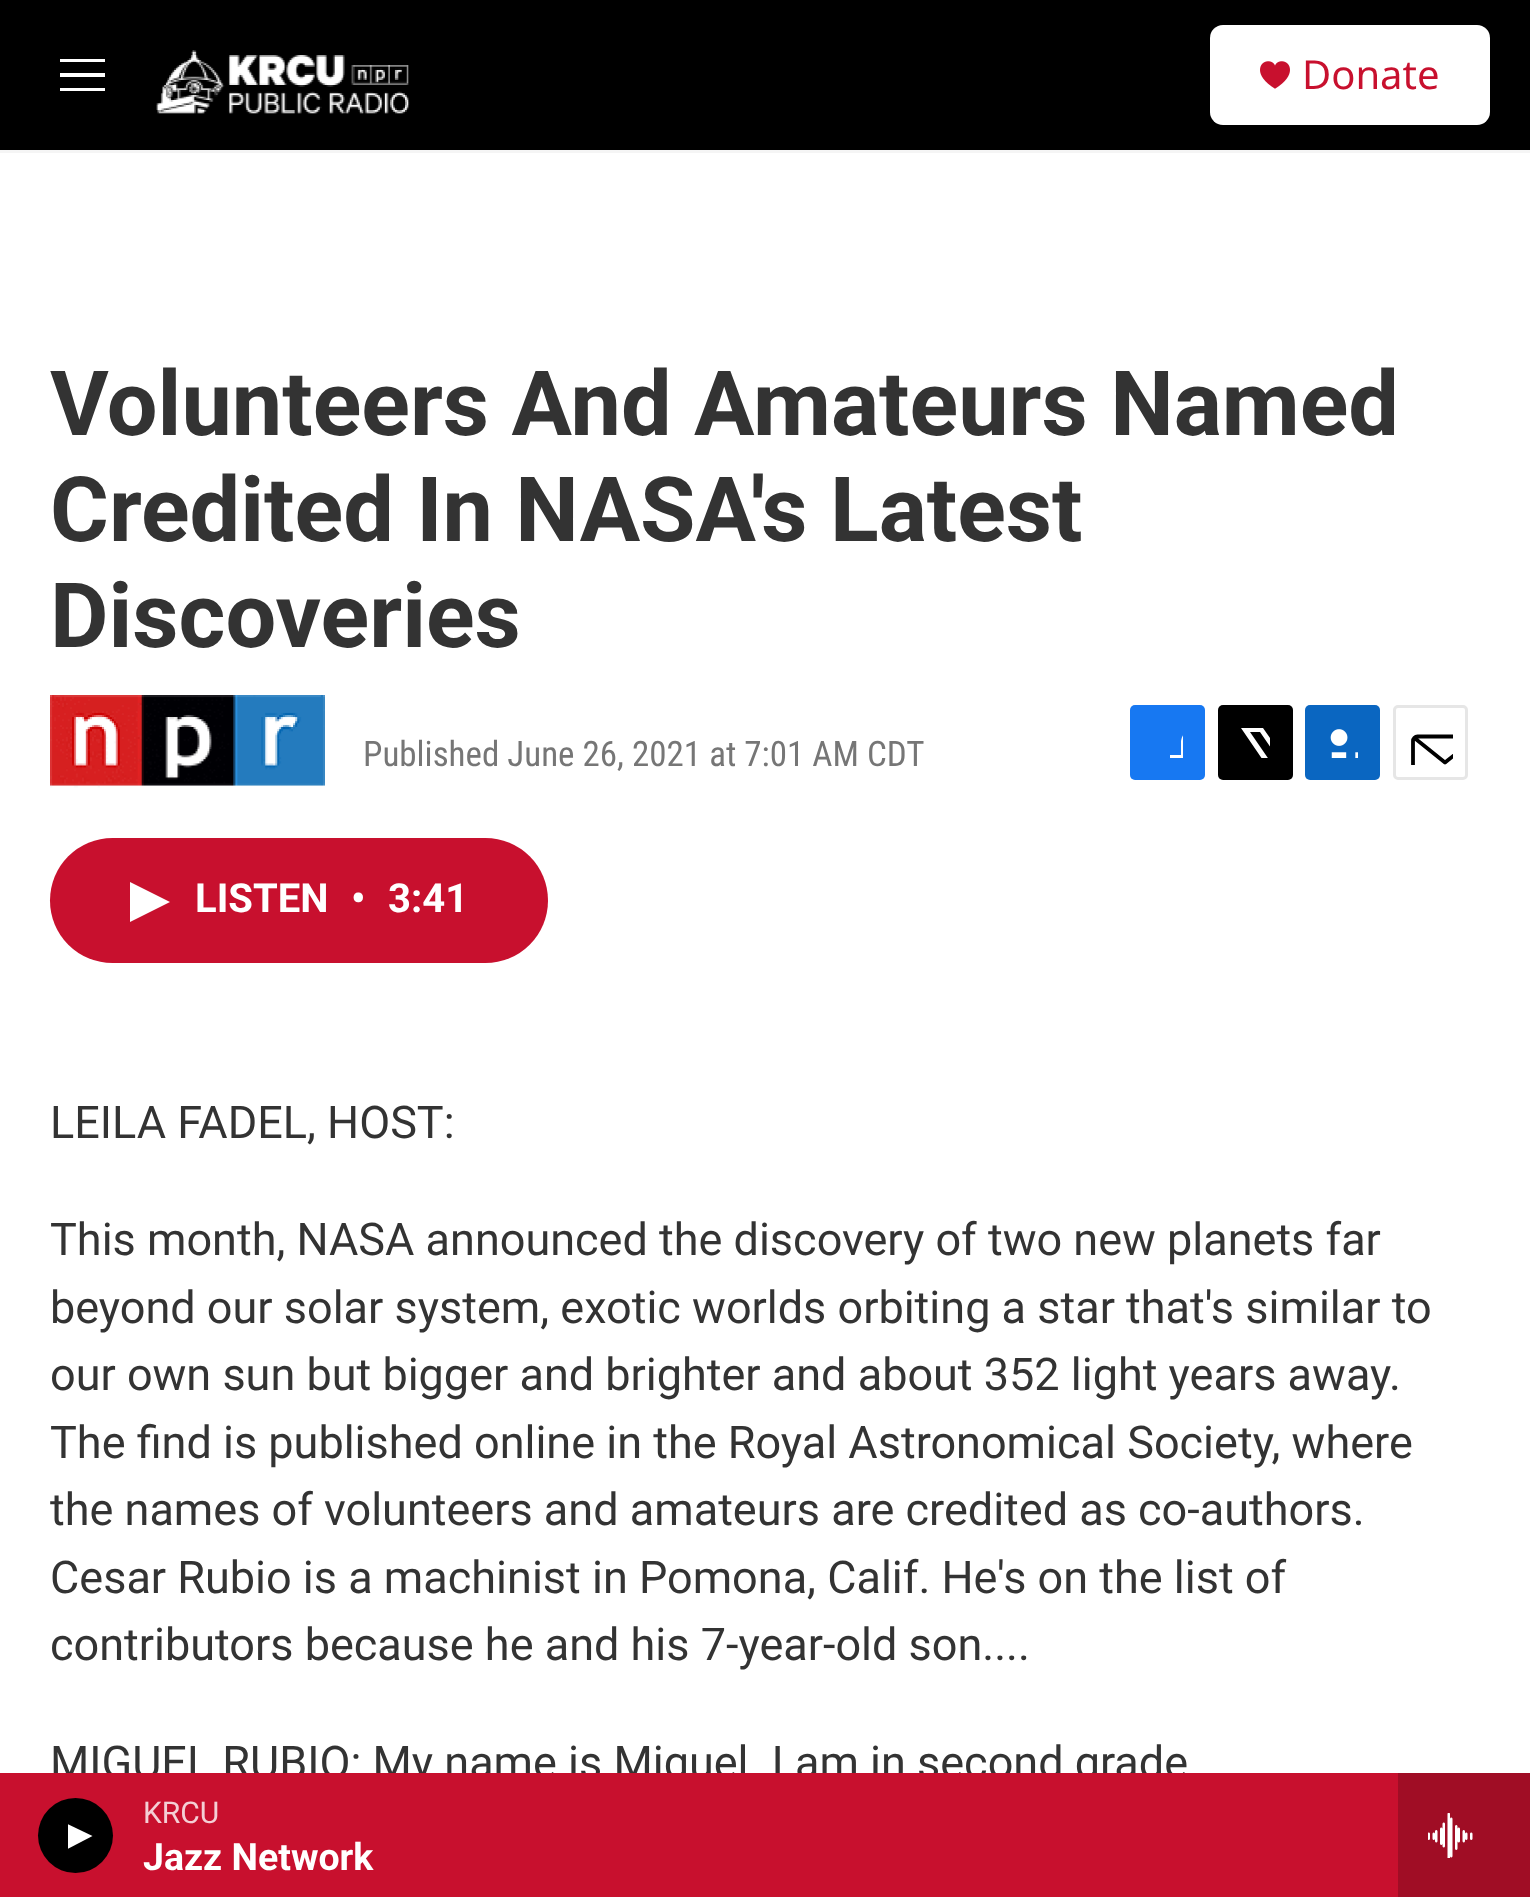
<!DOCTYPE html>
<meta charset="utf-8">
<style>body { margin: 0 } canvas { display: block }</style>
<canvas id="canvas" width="1530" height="1897"></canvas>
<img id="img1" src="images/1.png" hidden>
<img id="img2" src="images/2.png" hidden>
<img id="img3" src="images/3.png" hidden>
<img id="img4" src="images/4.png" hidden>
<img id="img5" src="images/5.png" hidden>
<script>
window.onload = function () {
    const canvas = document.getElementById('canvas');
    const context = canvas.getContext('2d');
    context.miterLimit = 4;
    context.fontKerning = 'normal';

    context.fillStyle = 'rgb(255, 255, 255)';
    context.fillRect(0, 0, 1530, 1897);
    context.fillStyle = 'rgb(0, 0, 0)';
    context.fillRect(0, 0, 1530, 150);
    context.fillStyle = 'rgb(245, 245, 245)';
    context.fillRect(0, 150, 1530, 3);
    context.fillStyle = 'rgb(255, 255, 255)';
    context.beginPath();
    context.moveTo(60, 77);
    context.lineTo(60, 73);
    context.lineTo(105, 73);
    context.lineTo(105, 77);
    context.closePath();
    context.moveTo(60, 62);
    context.lineTo(60, 59);
    context.lineTo(105, 59);
    context.lineTo(105, 62);
    context.closePath();
    context.moveTo(60, 91);
    context.lineTo(60, 88);
    context.lineTo(105, 88);
    context.lineTo(105, 91);
    context.closePath();
    context.fill('evenodd');
    context.drawImage(document.getElementById('img1'), 156, 50, 254, 64);
    context.beginPath();
    context.roundRect(1210, 25, 280, 100, 13);
    context.fill();
    context.drawImage(document.getElementById('img2'), 1260, 61, 30, 28);
    context.fillStyle = 'rgb(160, 13, 37)';
    context.fillRect(1398, 1773, 132, 124);
    context.drawImage(document.getElementById('img3'), 1428, 1813, 45, 45);
    context.drawImage(document.getElementById('img4'), 50, 695, 275, 93);
    context.fillStyle = 'rgb(23, 120, 242)';
    context.beginPath();
    context.roundRect(1130, 705, 75, 75, 5);
    context.fill();
    context.save();
    context.beginPath();
    context.rect(1153, 728, 30, 30);
    context.clip();
    context.fillStyle = 'rgb(255, 255, 255)';
    context.beginPath();
    context.moveTo(1194, 780);
    context.lineTo(1181, 780);
    context.lineTo(1181, 768);
    context.lineTo(1170, 768);
    context.lineTo(1170, 755);
    context.lineTo(1181, 755);
    context.lineTo(1181, 741);
    context.bezierCurveTo(1183, 729, 1194, 727, 1205, 729);
    context.lineTo(1205, 740);
    context.bezierCurveTo(1191, 740, 1194, 744, 1194, 755);
    context.lineTo(1205, 755);
    context.lineTo(1205, 762);
    context.lineTo(1204, 768);
    context.lineTo(1194, 768);
    context.closePath();
    context.fill();
    context.restore();
    context.fillStyle = 'rgb(0, 0, 0)';
    context.beginPath();
    context.roundRect(1218, 705, 75, 75, 5);
    context.fill();
    context.save();
    context.beginPath();
    context.rect(1240, 728, 30, 30);
    context.clip();
    context.fillStyle = 'rgb(255, 255, 255)';
    context.beginPath();
    context.moveTo(1284, 759);
    context.lineTo(1293, 772);
    context.bezierCurveTo(1293, 774, 1293, 777, 1292, 778);
    context.lineTo(1260, 732);
    context.lineTo(1250, 732);
    context.lineTo(1283, 780);
    context.lineTo(1277, 780);
    context.lineTo(1272, 773);
    context.lineTo(1266, 780);
    context.lineTo(1260, 780);
    context.lineTo(1269, 769);
    context.lineTo(1241, 728);
    context.lineTo(1263, 728);
    context.lineTo(1282, 755);
    context.lineTo(1293, 742);
    context.lineTo(1293, 749);
    context.closePath();
    context.fill();
    context.restore();
    context.fillStyle = 'rgb(10, 102, 193)';
    context.beginPath();
    context.roundRect(1305, 705, 75, 75, 5);
    context.fill();
    context.drawImage(document.getElementById('img5'), 1330, 729, 28, 29);
    context.beginPath();
    context.roundRect(1394.5, 706.5, 72, 72, 3.5);
    context.strokeStyle = 'rgb(230, 230, 230)';
    context.lineWidth = 3;
    context.stroke();
    context.save();
    context.beginPath();
    context.rect(1408, 720, 45, 45);
    context.clip();
    context.beginPath();
    context.moveTo(1477, 775);
    context.bezierCurveTo(1477, 777.5, 1475, 779.5, 1472.5, 779.5);
    context.lineTo(1417.5, 779.5);
    context.bezierCurveTo(1415, 779.5, 1413, 777.5, 1413, 775);
    context.lineTo(1413, 741);
    context.bezierCurveTo(1413, 738.5, 1415, 736.5, 1417.5, 736.5);
    context.lineTo(1472.5, 736.5);
    context.bezierCurveTo(1475, 736.5, 1477, 738.5, 1477, 741);
    context.closePath();
    context.moveTo(1475.5, 738);
    context.lineTo(1445, 762.5);
    context.lineTo(1414.5, 738);
    context.strokeStyle = 'rgb(0, 0, 0)';
    context.lineWidth = 3.8;
    context.lineCap = 'round';
    context.lineJoin = 'round';
    context.stroke();
    context.restore();
    context.fillStyle = 'rgb(200, 16, 46)';
    context.beginPath();
    context.roundRect(50, 838, 498, 125, 62.5);
    context.fill();
    context.fillStyle = 'rgb(255, 255, 255)';
    context.beginPath();
    context.moveTo(130, 882);
    context.lineTo(170, 902);
    context.lineTo(130, 922);
    context.closePath();
    context.fill();
    context.font = '40px Noto Sans';
    context.fillStyle = 'rgb(200, 16, 46)';
    context.fillText('Donate', 1302, 89);
    context.font = 'bold 90px Roboto';
    context.fillStyle = 'rgb(51, 51, 51)';
    context.fillText('Volunteers And Amateurs Named', 50, 435);
    context.fillText('Credited In NASA\'s Latest', 50, 541);
    context.fillText('Discoveries', 50, 647);
    context.font = '35px Roboto Condensed';
    context.fillStyle = 'rgb(118, 118, 118)';
    context.fillText('Published June 26, 2021 at 7:01 AM CDT', 363, 766);
    context.font = 'bold 40px "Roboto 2"';
    context.fillStyle = 'rgb(255, 255, 255)';
    context.fillText('LISTEN', 195, 912);
    context.fillText('•', 351, 912);
    context.fillText('3:41', 388, 912);
    context.font = '45px Roboto';
    context.fillStyle = 'rgb(51, 51, 51)';
    context.fillText('LEILA FADEL, HOST:', 50, 1138);
    context.fillText('This month, NASA announced the discovery of two new planets far', 50, 1255);
    context.fillText('beyond our solar system, exotic worlds orbiting a star that\'s similar to', 50, 1323);
    context.fillText('our own sun but bigger and brighter and about 352 light years away.', 50, 1390);
    context.fillText('The find is published online in the Royal Astronomical Society, where', 50, 1458);
    context.fillText('the names of volunteers and amateurs are credited as co-authors.', 50, 1525);
    context.fillText('Cesar Rubio is a machinist in Pomona, Calif. He\'s on the list of', 50, 1593);
    context.fillText('contributors because he and his 7-year-old son....', 50, 1660);
    context.fillText('MIGUEL RUBIO: My name is Miguel. I am in second grade', 50, 1778);
    context.fillStyle = 'rgb(200, 16, 46)';
    context.fillRect(0, 1773, 1398, 124);
    context.font = '30px Roboto';
    context.fillStyle = 'rgb(244, 207, 213)';
    context.fillText('KRCU', 143, 1823);
    context.font = 'bold 37.5px "Roboto 2"';
    context.fillStyle = 'rgb(255, 255, 255)';
    context.fillText('Jazz Network', 143, 1870);
    context.fillStyle = 'rgb(0, 0, 0)';
    context.beginPath();
    context.arc(75.5, 1835.5, 37.5, 0, 2 * Math.PI);
    context.fill();
    context.save();
    context.beginPath();
    context.rect(68, 1823, 25, 27);
    context.clip();
    context.fillStyle = 'rgb(255, 255, 255)';
    context.beginPath();
    context.moveTo(67.5, 1824);
    context.lineTo(92.5, 1836);
    context.lineTo(67.5, 1849);
    context.closePath();
    context.fill();
    context.restore();
};
</script>
